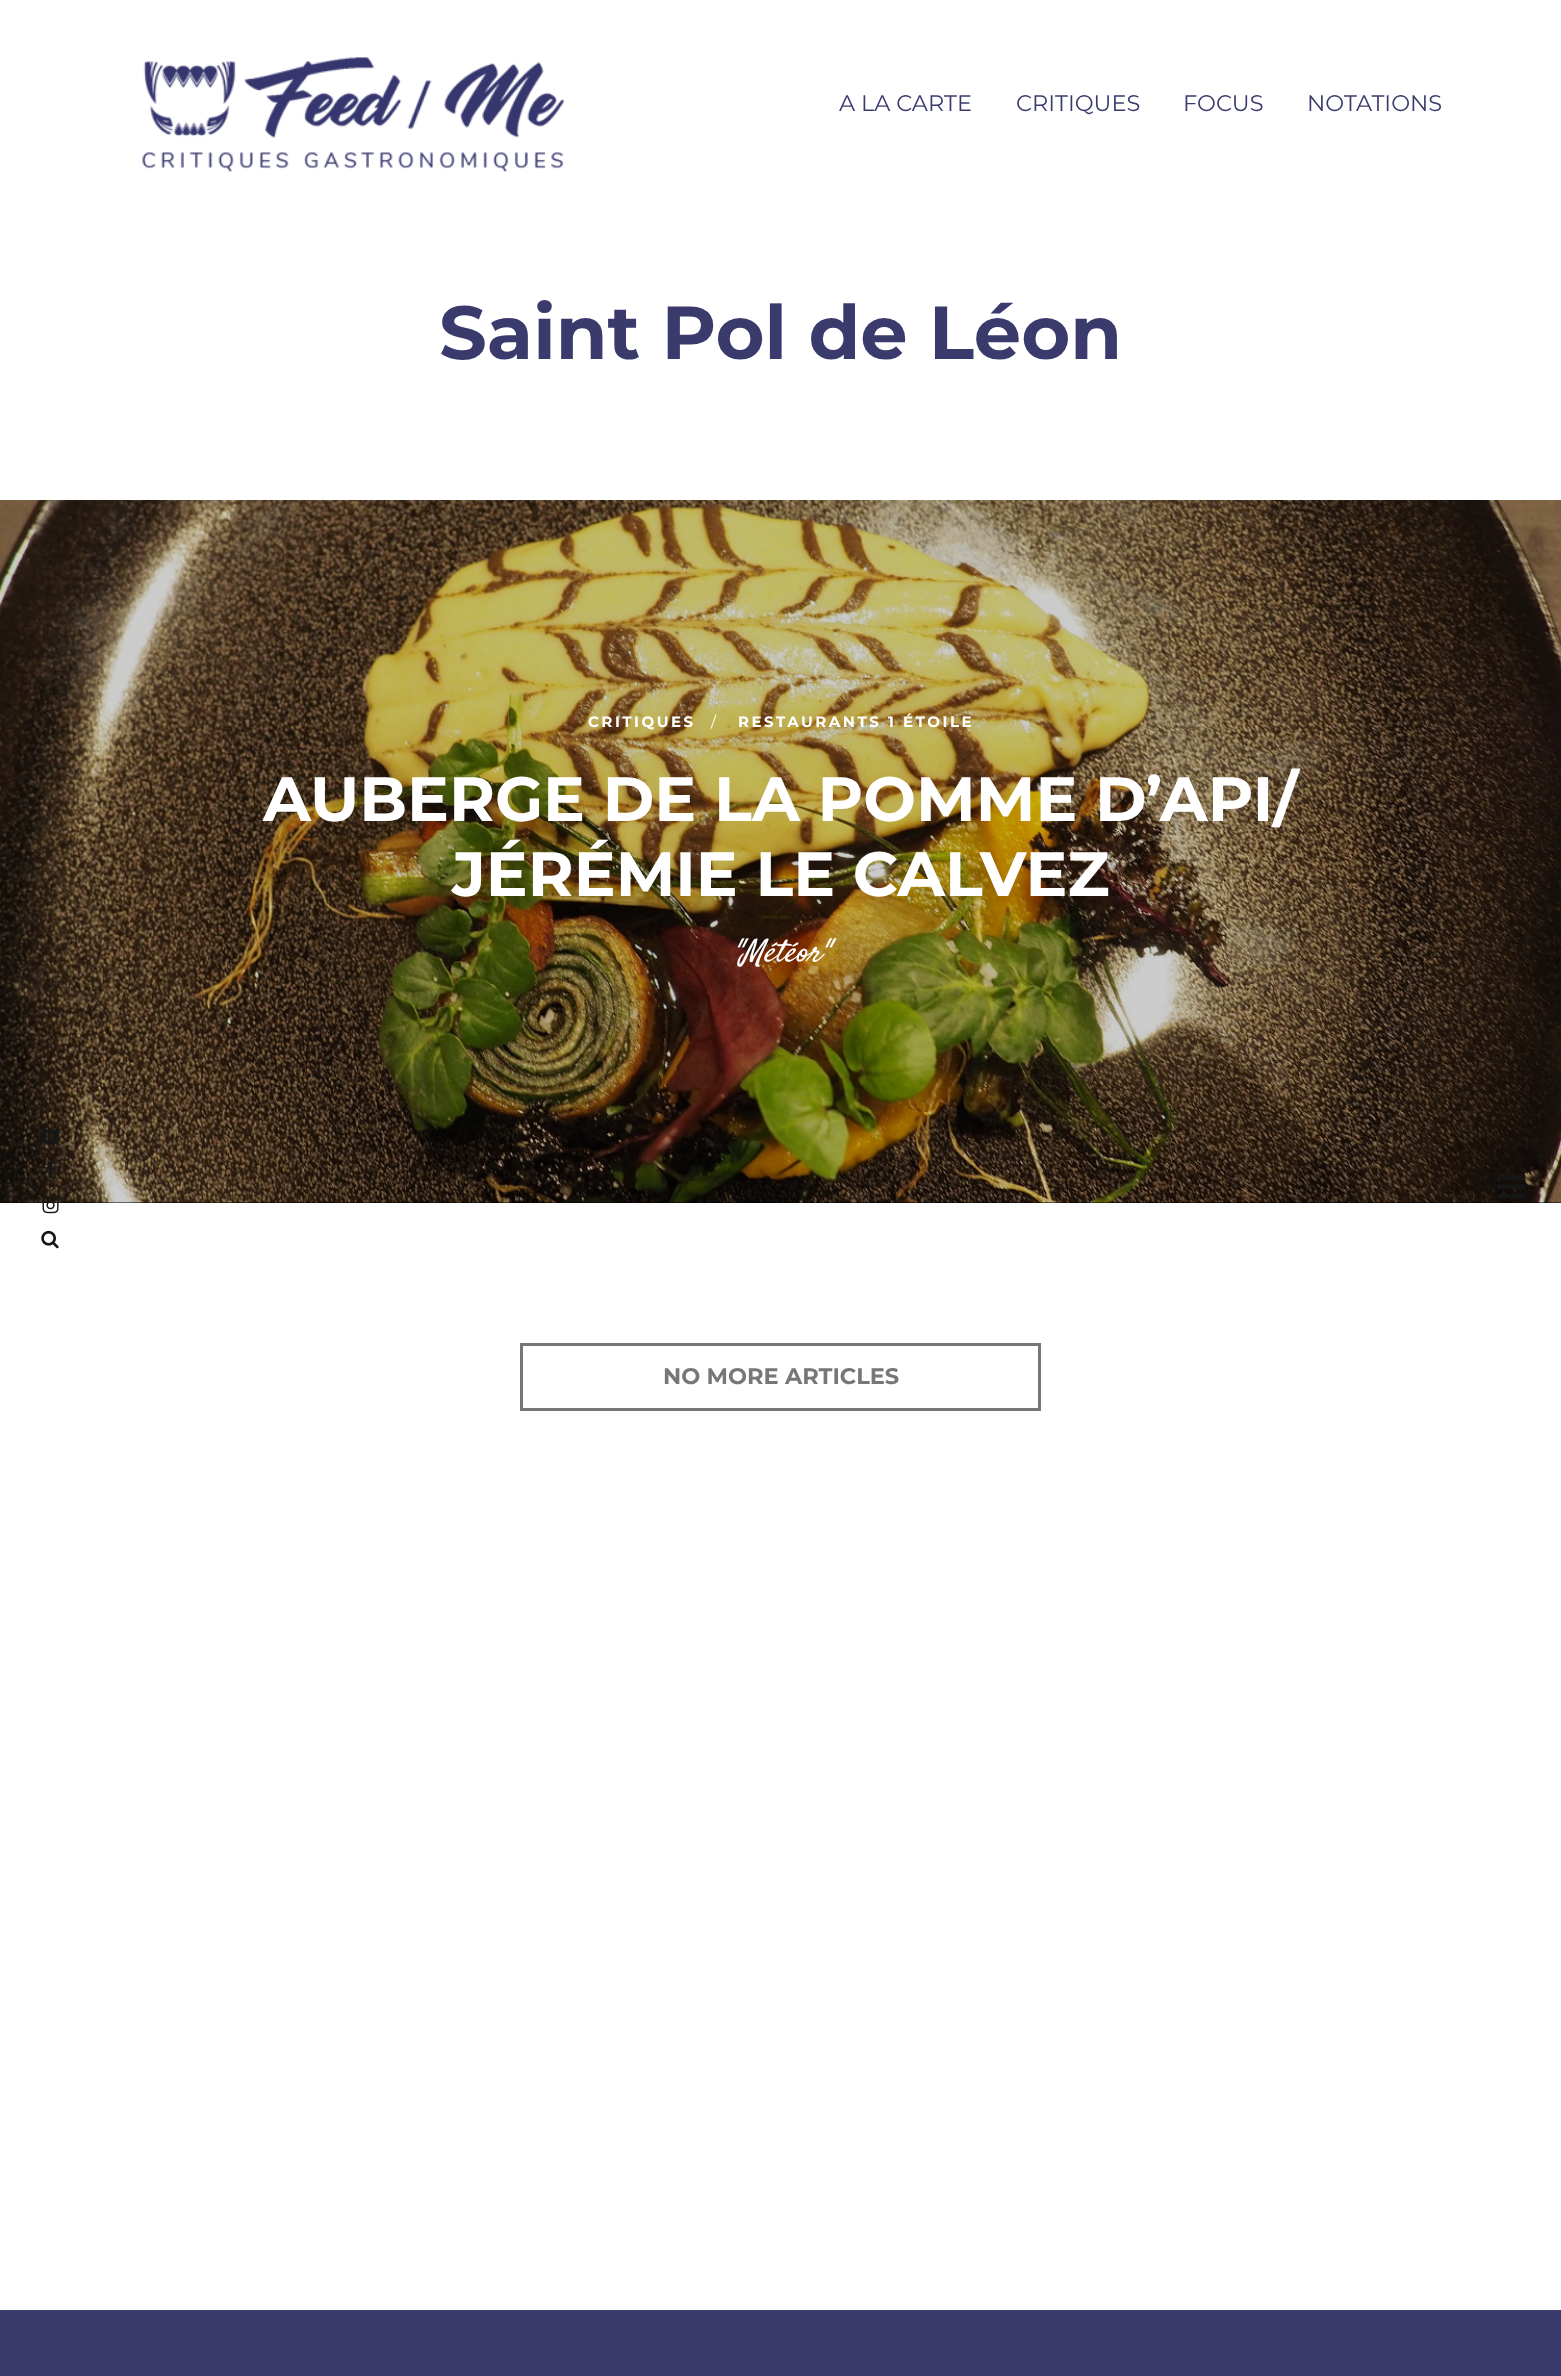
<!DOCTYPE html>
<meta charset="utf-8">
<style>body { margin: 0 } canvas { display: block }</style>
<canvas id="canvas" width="1561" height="2376"></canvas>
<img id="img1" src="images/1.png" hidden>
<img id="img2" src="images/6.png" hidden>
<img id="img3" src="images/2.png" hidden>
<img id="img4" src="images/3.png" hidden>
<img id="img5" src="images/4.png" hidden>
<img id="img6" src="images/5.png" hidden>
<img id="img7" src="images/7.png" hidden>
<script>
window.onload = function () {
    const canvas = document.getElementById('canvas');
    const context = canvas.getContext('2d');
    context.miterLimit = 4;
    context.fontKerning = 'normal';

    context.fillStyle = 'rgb(255, 255, 255)';
    context.fillRect(0, 0, 1561, 2376);
    context.drawImage(document.getElementById('img1'), 142, 57, 422, 115);
    context.fillStyle = 'rgb(0, 0, 0)';
    context.fillRect(0, 500, 1561, 703);
    context.drawImage(document.getElementById('img2'), 0, 500, 1561, 703);
    context.drawImage(document.getElementById('img3'), 40, 1129, 19, 14);
    context.drawImage(document.getElementById('img4'), 46, 1161, 9, 18);
    context.drawImage(document.getElementById('img5'), 42, 1197, 17, 17);
    context.drawImage(document.getElementById('img6'), 41, 1230, 18, 19);
    context.strokeStyle = 'rgb(119, 119, 119)';
    context.lineWidth = 3;
    context.strokeRect(521.5, 1344.5, 518, 65);
    context.drawImage(document.getElementById('img7'), 1497, 1175, 29, 24);
    context.fillStyle = 'rgb(58, 58, 109)';
    context.fillRect(0, 2310, 1561, 66);
    context.font = '22.5px Montserrat';
    context.fillText('A LA CARTE', 839, 111);
    context.fillText('CRITIQUES', 1016, 111);
    context.fillText('FOCUS', 1183, 111);
    context.fillText('NOTATIONS', 1307, 111);
    context.font = 'bold 75px Montserrat';
    context.fillText('Saint Pol de Léon', 439, 359);
    context.letterSpacing = '2.5px';
    context.font = 'bold 15px Montserrat';
    context.fillStyle = 'rgb(255, 255, 255)';
    context.fillText('CRITIQUES', 588, 727);
    context.font = '15px Montserrat';
    context.fillText('/', 711, 727);
    context.font = 'bold 15px Montserrat';
    context.fillText('RESTAURANTS 1 ÉTOILE', 738, 727);
    context.letterSpacing = '0px';
    context.font = 'bold 62.5px Montserrat';
    context.fillText('AUBERGE DE LA POMME D’API/', 263, 821);
    context.fillText('JÉRÉMIE LE CALVEZ', 452, 896);
    context.font = 'italic 31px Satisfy';
    context.fillText('"Météor"', 733, 961);
    context.font = 'bold 22.5px Montserrat';
    context.fillStyle = 'rgb(119, 119, 119)';
    context.fillText('NO MORE ARTICLES', 663, 1384);
};
</script>
